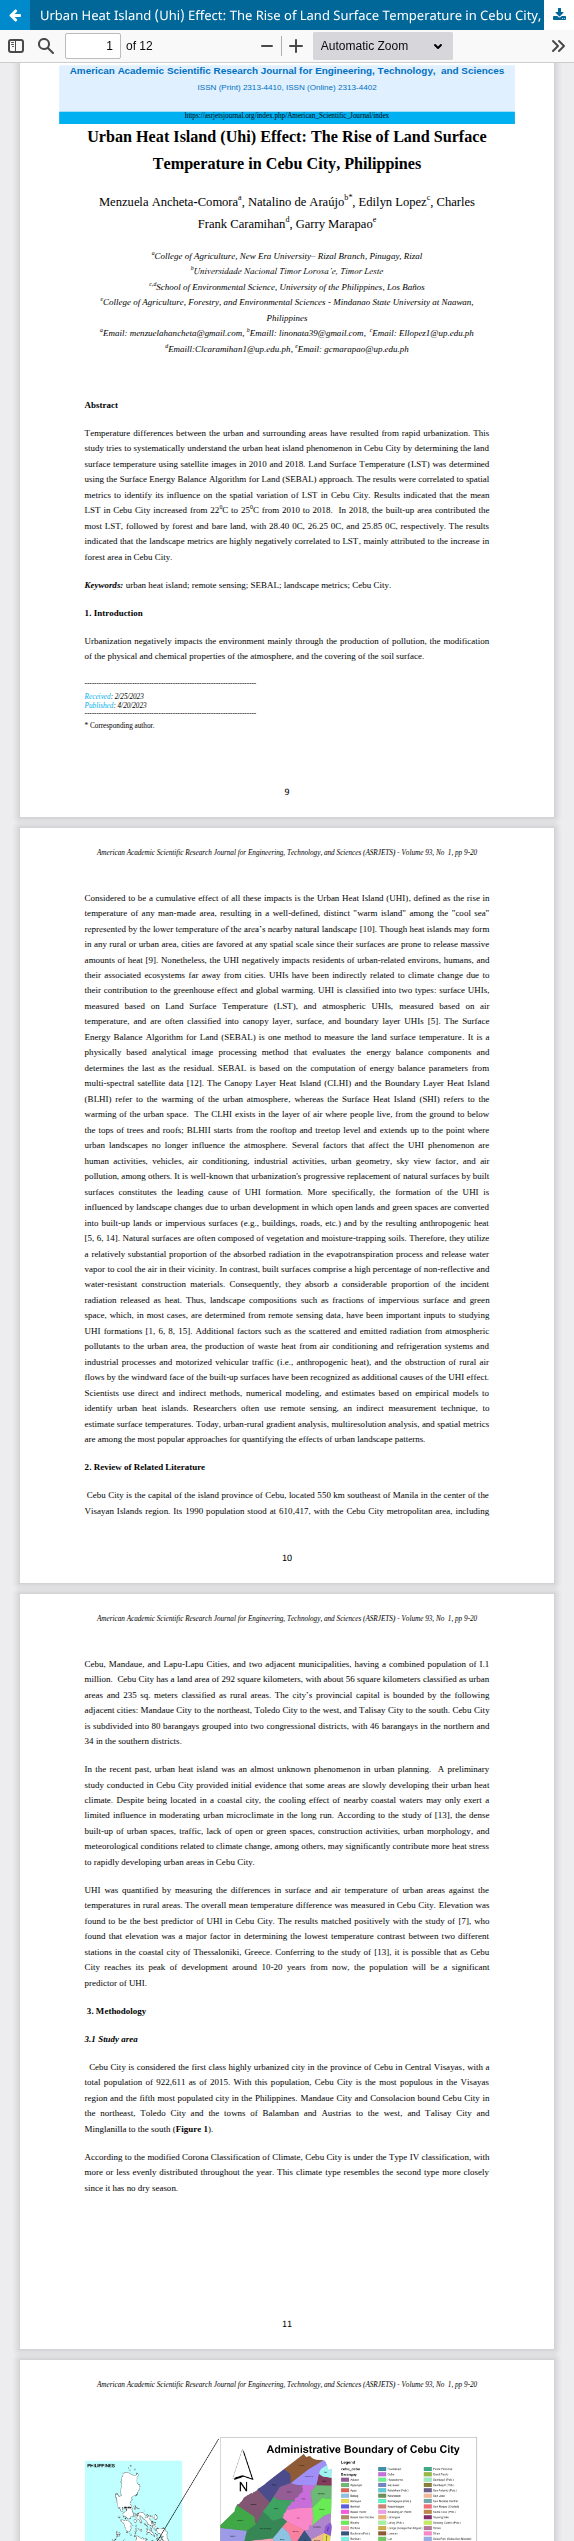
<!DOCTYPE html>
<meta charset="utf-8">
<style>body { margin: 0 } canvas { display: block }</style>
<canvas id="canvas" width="574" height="2541"></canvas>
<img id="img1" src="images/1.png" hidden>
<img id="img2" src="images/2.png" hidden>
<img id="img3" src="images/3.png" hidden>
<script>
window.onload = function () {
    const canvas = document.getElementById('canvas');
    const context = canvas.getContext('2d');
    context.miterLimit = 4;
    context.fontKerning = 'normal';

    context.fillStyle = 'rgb(255, 255, 255)';
    context.fillRect(0, 0, 574, 2541);
    context.fillStyle = 'rgb(0, 103, 152)';
    context.fillRect(30, 0, 514, 30);
    context.fillStyle = 'rgb(0, 138, 203)';
    context.fillRect(0, 0, 30, 30);
    context.drawImage(document.getElementById('img1'), 9, 9, 12, 13);
    context.drawImage(document.getElementById('img2'), 553, 8, 13, 12);
    context.drawImage(document.getElementById('img3'), 0, 30, 574, 2511);
    context.font = '13px Noto Sans';
    context.fillStyle = 'rgb(255, 255, 255)';
    context.fillText('Urban Heat Island (Uhi) Effect: The Rise of Land Surface Temperature in Cebu City,', 40, 20);
};
</script>
